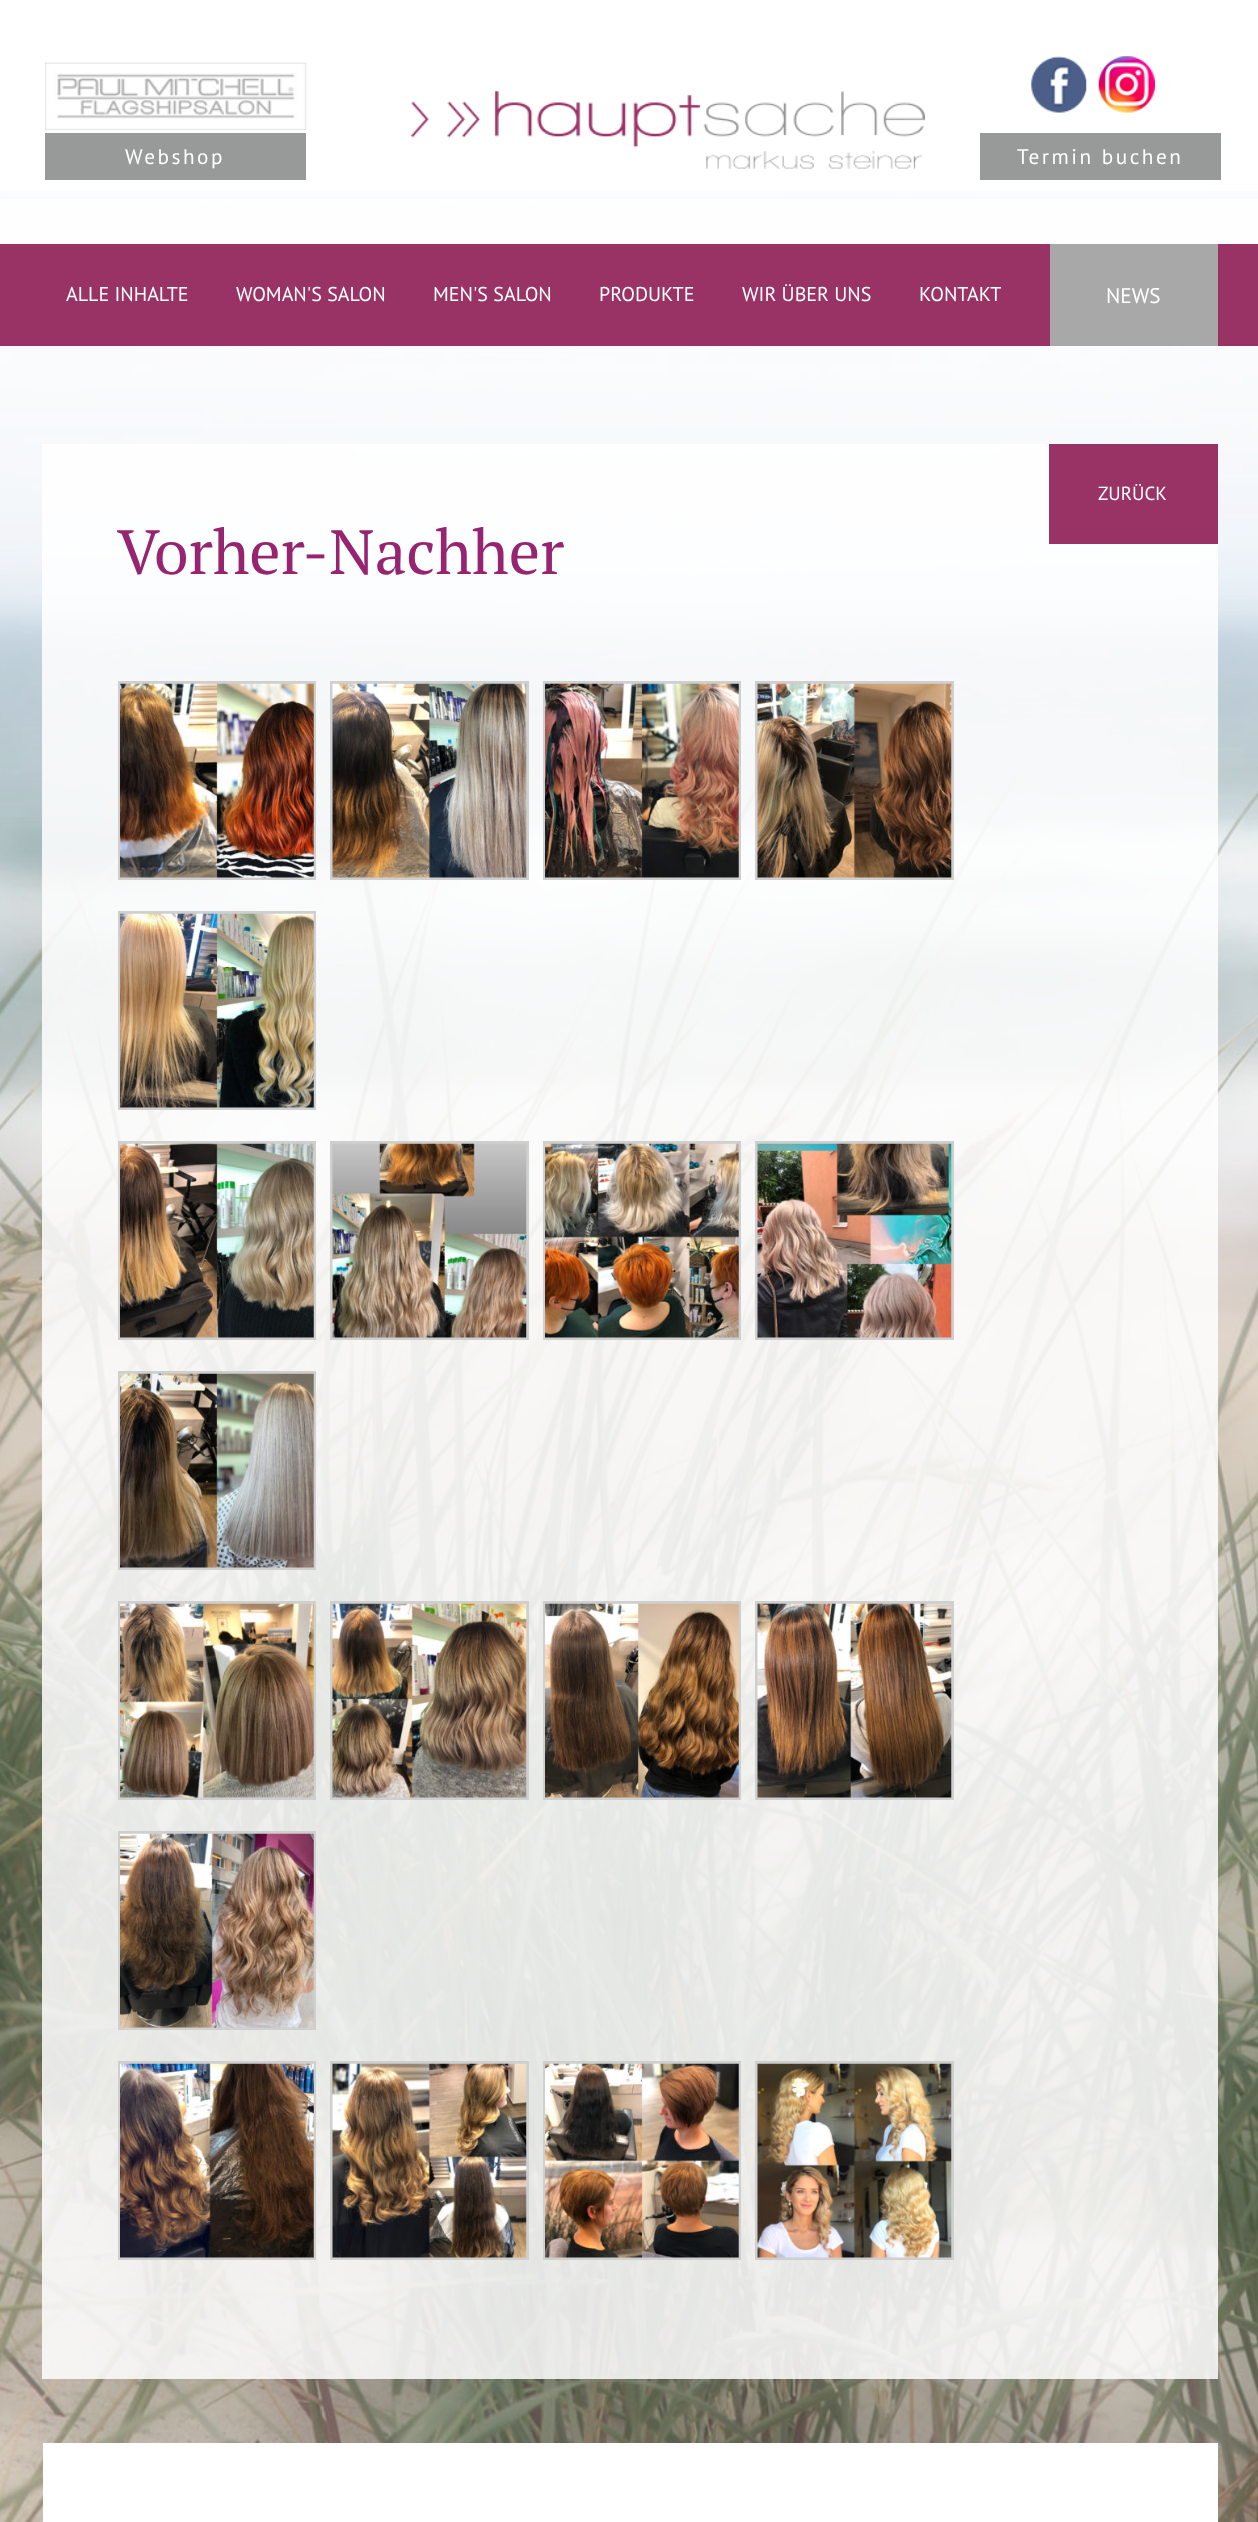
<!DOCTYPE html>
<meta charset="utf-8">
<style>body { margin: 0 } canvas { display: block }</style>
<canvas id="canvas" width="1258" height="2522"></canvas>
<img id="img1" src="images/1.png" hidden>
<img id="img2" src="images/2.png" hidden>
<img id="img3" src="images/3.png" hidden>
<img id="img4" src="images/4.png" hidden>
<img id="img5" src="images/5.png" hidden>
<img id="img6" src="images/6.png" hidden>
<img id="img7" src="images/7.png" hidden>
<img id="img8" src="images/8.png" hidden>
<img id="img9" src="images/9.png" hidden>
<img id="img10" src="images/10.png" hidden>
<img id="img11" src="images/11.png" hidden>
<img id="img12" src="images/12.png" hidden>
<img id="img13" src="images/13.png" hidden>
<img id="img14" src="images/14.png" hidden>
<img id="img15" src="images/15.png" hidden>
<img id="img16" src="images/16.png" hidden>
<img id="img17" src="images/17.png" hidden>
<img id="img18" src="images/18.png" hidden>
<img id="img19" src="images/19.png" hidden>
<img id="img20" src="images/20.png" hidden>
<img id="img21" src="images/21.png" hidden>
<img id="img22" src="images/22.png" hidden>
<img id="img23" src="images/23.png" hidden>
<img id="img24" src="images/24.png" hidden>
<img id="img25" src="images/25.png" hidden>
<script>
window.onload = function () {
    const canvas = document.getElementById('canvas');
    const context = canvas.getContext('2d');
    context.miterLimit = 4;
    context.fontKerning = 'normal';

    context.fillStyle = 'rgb(255, 255, 255)';
    context.fillRect(0, 0, 1258, 2522);
    context.drawImage(document.getElementById('img1'), 0, 191, 1258, 2331);
    context.drawImage(document.getElementById('img2'), 411, 91, 514, 78);
    context.drawImage(document.getElementById('img3'), 1031, 56, 56, 57);
    context.drawImage(document.getElementById('img4'), 1098, 56, 57, 57);
    context.drawImage(document.getElementById('img5'), 45, 62, 262, 69);
    context.fillStyle = 'rgb(152, 153, 153)';
    context.fillRect(45, 133, 261, 47);
    context.fillRect(980, 133, 241, 47);
    context.drawImage(document.getElementById('img6'), 0, 199, 1258, 618);
    context.fillStyle = 'rgb(153, 51, 102)';
    context.fillRect(0, 244, 1258, 102);
    context.fillStyle = 'rgb(168, 168, 168)';
    context.fillRect(1050, 244, 168, 102);
    context.fillStyle = 'rgba(255, 255, 255, 0.85)';
    context.fillRect(42, 444, 1176, 1935);
    context.fillStyle = 'rgb(153, 51, 102)';
    context.fillRect(1049, 444, 169, 100);
    context.strokeStyle = 'rgb(207, 207, 207)';
    context.lineWidth = 3;
    context.strokeRect(119.5, 682.5, 195, 196);
    context.drawImage(document.getElementById('img7'), 120, 683, 194, 195);
    context.strokeRect(331.5, 682.5, 196, 196);
    context.drawImage(document.getElementById('img8'), 332, 683, 195, 195);
    context.strokeRect(544.5, 682.5, 195, 196);
    context.drawImage(document.getElementById('img9'), 545, 683, 194, 195);
    context.strokeRect(756.5, 682.5, 196, 196);
    context.drawImage(document.getElementById('img10'), 757, 683, 195, 195);
    context.strokeRect(119.5, 912.5, 195, 196);
    context.drawImage(document.getElementById('img11'), 120, 913, 194, 195);
    context.strokeRect(119.5, 1142.5, 195, 196);
    context.drawImage(document.getElementById('img12'), 120, 1143, 194, 195);
    context.strokeRect(331.5, 1142.5, 196, 196);
    context.drawImage(document.getElementById('img13'), 332, 1143, 195, 195);
    context.strokeRect(544.5, 1142.5, 195, 196);
    context.drawImage(document.getElementById('img14'), 545, 1143, 194, 195);
    context.strokeRect(756.5, 1142.5, 196, 196);
    context.drawImage(document.getElementById('img15'), 757, 1143, 195, 195);
    context.strokeRect(119.5, 1372.5, 195, 196);
    context.drawImage(document.getElementById('img16'), 120, 1373, 194, 195);
    context.strokeRect(119.5, 1602.5, 195, 196);
    context.drawImage(document.getElementById('img17'), 120, 1603, 194, 195);
    context.strokeRect(331.5, 1602.5, 196, 196);
    context.drawImage(document.getElementById('img18'), 332, 1603, 195, 195);
    context.strokeRect(544.5, 1602.5, 195, 196);
    context.drawImage(document.getElementById('img19'), 545, 1603, 194, 195);
    context.strokeRect(756.5, 1602.5, 196, 196);
    context.drawImage(document.getElementById('img20'), 757, 1603, 195, 195);
    context.strokeRect(119.5, 1832.5, 195, 196);
    context.drawImage(document.getElementById('img21'), 120, 1833, 194, 195);
    context.strokeRect(119.5, 2062.5, 195, 196);
    context.drawImage(document.getElementById('img22'), 120, 2063, 194, 195);
    context.strokeRect(331.5, 2062.5, 196, 196);
    context.drawImage(document.getElementById('img23'), 332, 2063, 195, 195);
    context.strokeRect(544.5, 2062.5, 195, 196);
    context.drawImage(document.getElementById('img24'), 545, 2063, 194, 195);
    context.strokeRect(756.5, 2062.5, 196, 196);
    context.drawImage(document.getElementById('img25'), 757, 2063, 195, 195);
    context.fillStyle = 'rgb(255, 255, 255)';
    context.fillRect(43, 2443, 1175, 79);
    context.letterSpacing = '2.5px';
    context.font = '21.25px PT Sans';
    context.fillText('Webshop', 125, 164);
    context.fillText('Termin buchen', 1017, 164);
    context.letterSpacing = '0px';
    context.font = '20px PT Sans';
    context.fillText('ALLE INHALTE', 66, 301);
    context.fillText('WOMAN\'S SALON', 236, 301);
    context.fillText('MEN\'S SALON', 433, 301);
    context.fillText('PRODUKTE', 599, 301);
    context.fillText('WIR ÜBER UNS', 742, 301);
    context.fillText('KONTAKT', 919, 301);
    context.font = '21.25px PT Sans';
    context.fillText('NEWS', 1106, 303);
    context.font = '19px PT Sans';
    context.fillText('ZURÜCK', 1098, 500);
    context.font = '62.5px PT Serif';
    context.fillStyle = 'rgb(151, 36, 113)';
    context.fillText('Vorher-Nachher', 117, 574);
};
</script>
